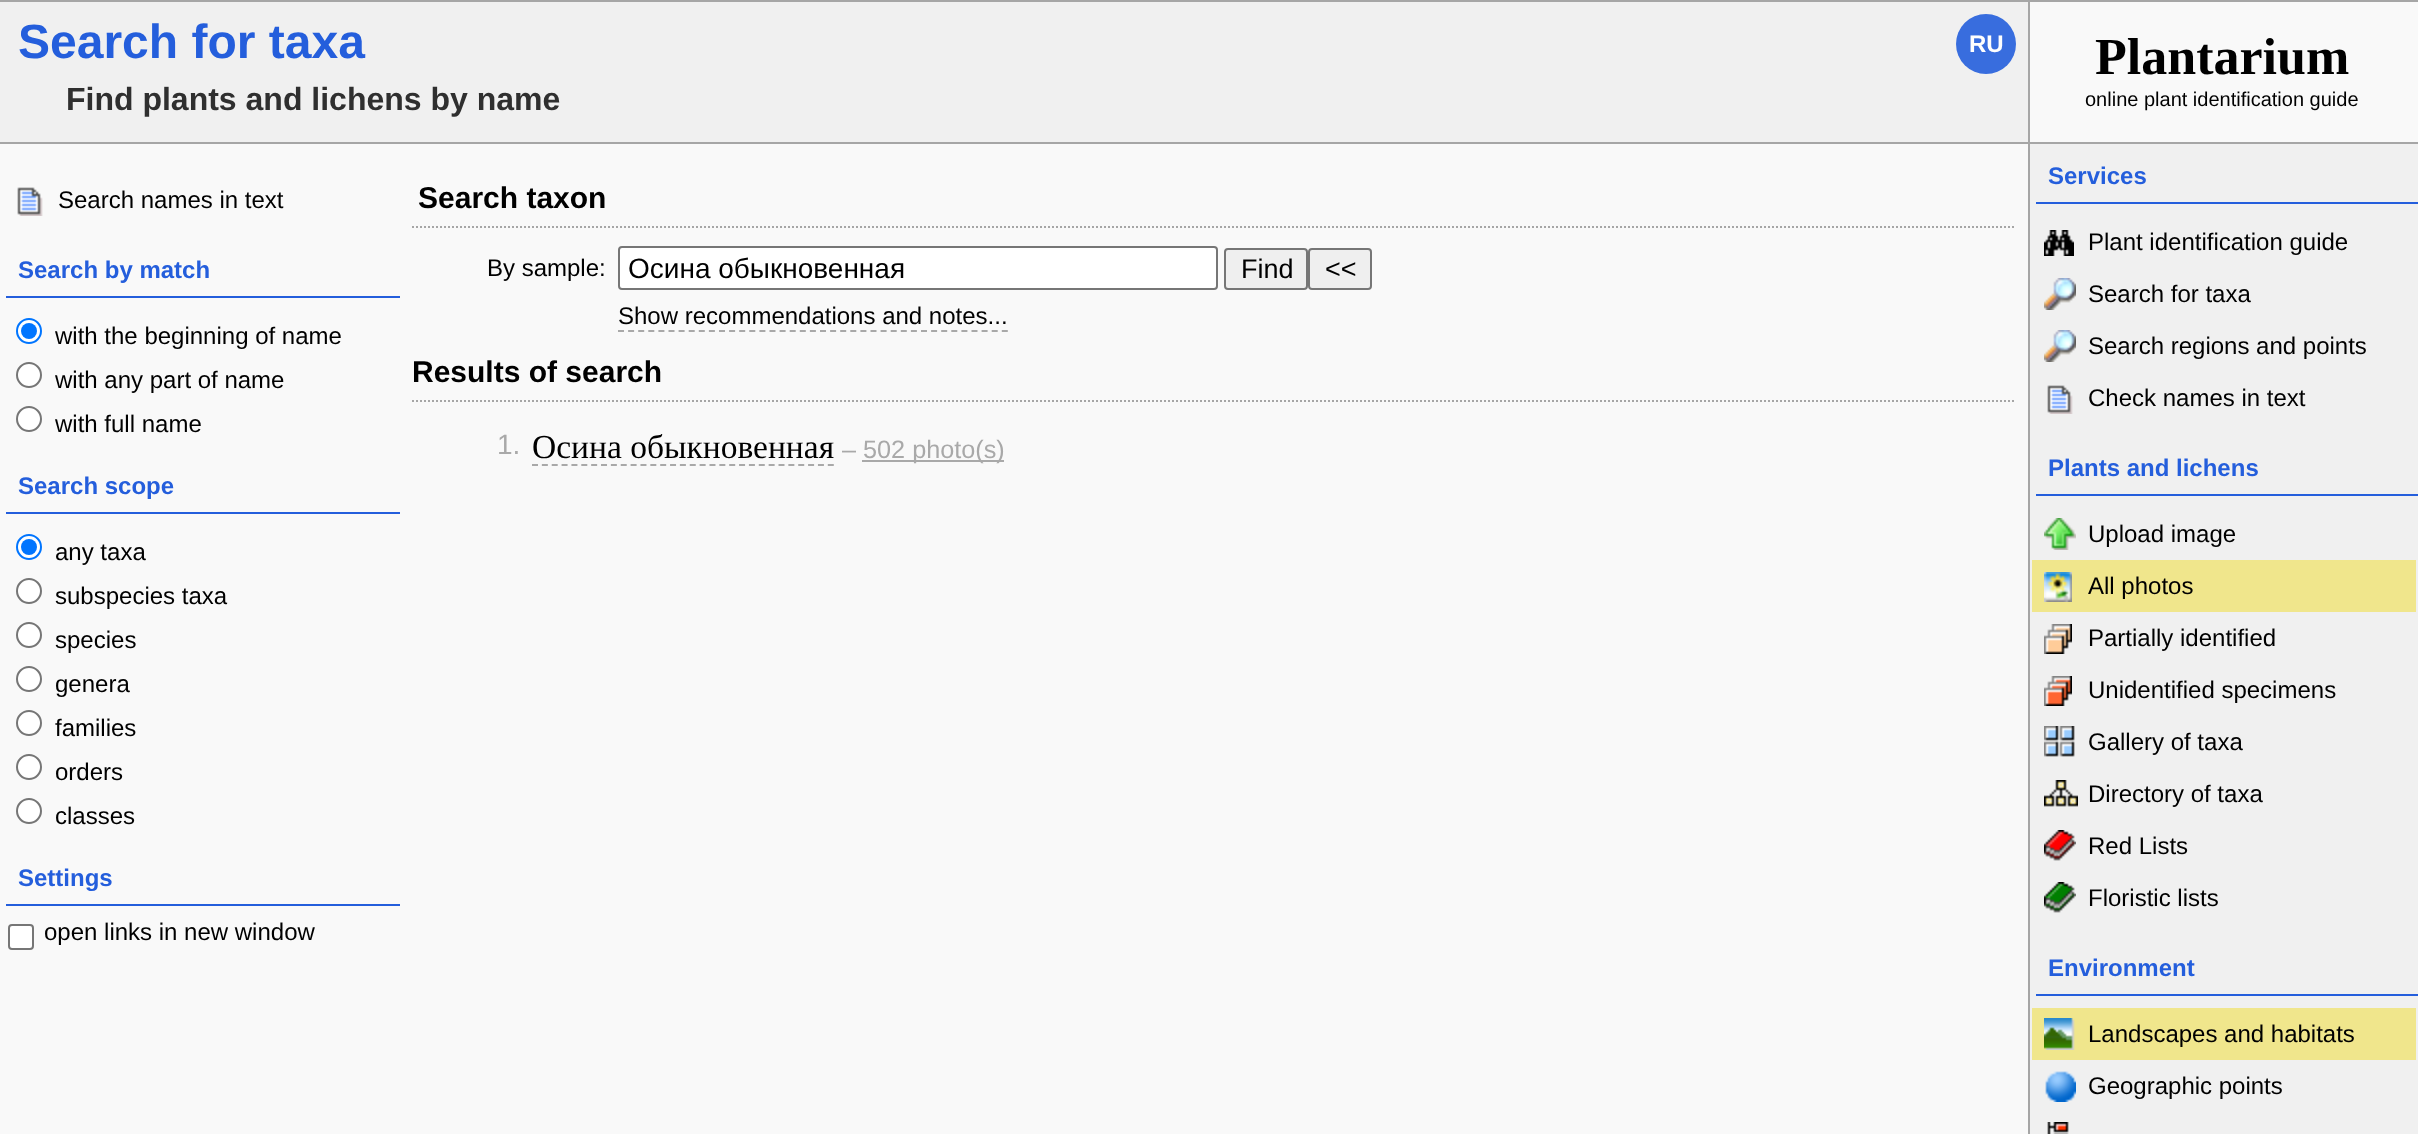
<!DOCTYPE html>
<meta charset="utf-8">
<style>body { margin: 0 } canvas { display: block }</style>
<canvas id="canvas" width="2418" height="1134"></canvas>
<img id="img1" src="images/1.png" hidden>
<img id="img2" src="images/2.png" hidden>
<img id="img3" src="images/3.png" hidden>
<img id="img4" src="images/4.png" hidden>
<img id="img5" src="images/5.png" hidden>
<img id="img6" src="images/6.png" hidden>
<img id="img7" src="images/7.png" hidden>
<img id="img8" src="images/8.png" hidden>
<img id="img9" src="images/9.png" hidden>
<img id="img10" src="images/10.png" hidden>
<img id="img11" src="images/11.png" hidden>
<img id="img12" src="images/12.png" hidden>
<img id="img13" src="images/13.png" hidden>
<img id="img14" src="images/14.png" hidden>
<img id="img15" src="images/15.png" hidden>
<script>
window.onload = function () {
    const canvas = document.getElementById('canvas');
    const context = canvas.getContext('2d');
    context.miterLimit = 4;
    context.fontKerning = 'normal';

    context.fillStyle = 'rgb(249, 249, 249)';
    context.fillRect(0, 0, 2418, 1134);
    context.fillStyle = 'rgb(240, 240, 240)';
    context.fillRect(0, 2, 2028, 140);
    context.fillStyle = 'rgb(56, 109, 222)';
    context.beginPath();
    context.arc(1986, 44, 30, 0, 2 * Math.PI);
    context.fill();
    context.fillStyle = 'rgb(166, 166, 166)';
    context.fillRect(0, 0, 2418, 2);
    context.fillRect(0, 142, 2418, 2);
    context.fillRect(2028, 0, 2, 1134);
    context.drawImage(document.getElementById('img1'), 17, 187, 26, 29);
    context.fillStyle = 'rgb(36, 94, 220)';
    context.fillRect(6, 296, 394, 2);
    context.fillStyle = 'rgb(255, 255, 255)';
    context.beginPath();
    context.arc(29, 331, 12, 0, 2 * Math.PI);
    context.fill();
    context.strokeStyle = 'rgb(0, 117, 255)';
    context.lineWidth = 2;
    context.stroke();
    context.fillStyle = 'rgb(0, 117, 255)';
    context.beginPath();
    context.arc(29, 331, 8, 0, 2 * Math.PI);
    context.fill();
    context.fillStyle = 'rgb(255, 255, 255)';
    context.beginPath();
    context.arc(29, 375, 12, 0, 2 * Math.PI);
    context.fill();
    context.strokeStyle = 'rgb(118, 118, 118)';
    context.stroke();
    context.beginPath();
    context.arc(29, 419, 12, 0, 2 * Math.PI);
    context.fill();
    context.stroke();
    context.fillStyle = 'rgb(36, 94, 220)';
    context.fillRect(6, 512, 394, 2);
    context.fillStyle = 'rgb(255, 255, 255)';
    context.beginPath();
    context.arc(29, 547, 12, 0, 2 * Math.PI);
    context.fill();
    context.strokeStyle = 'rgb(0, 117, 255)';
    context.stroke();
    context.fillStyle = 'rgb(0, 117, 255)';
    context.beginPath();
    context.arc(29, 547, 8, 0, 2 * Math.PI);
    context.fill();
    context.fillStyle = 'rgb(255, 255, 255)';
    context.beginPath();
    context.arc(29, 591, 12, 0, 2 * Math.PI);
    context.fill();
    context.strokeStyle = 'rgb(118, 118, 118)';
    context.stroke();
    context.beginPath();
    context.arc(29, 635, 12, 0, 2 * Math.PI);
    context.fill();
    context.stroke();
    context.beginPath();
    context.arc(29, 679, 12, 0, 2 * Math.PI);
    context.fill();
    context.stroke();
    context.beginPath();
    context.arc(29, 723, 12, 0, 2 * Math.PI);
    context.fill();
    context.stroke();
    context.beginPath();
    context.arc(29, 767, 12, 0, 2 * Math.PI);
    context.fill();
    context.stroke();
    context.beginPath();
    context.arc(29, 811, 12, 0, 2 * Math.PI);
    context.fill();
    context.stroke();
    context.fillStyle = 'rgb(36, 94, 220)';
    context.fillRect(6, 904, 394, 2);
    context.fillStyle = 'rgb(255, 255, 255)';
    context.beginPath();
    context.roundRect(9, 925, 24, 24, 3);
    context.fill();
    context.stroke();
    context.beginPath();
    context.moveTo(412, 227);
    context.lineTo(2016, 227);
    context.strokeStyle = 'rgb(166, 166, 166)';
    context.setLineDash([2, 2]);
    context.stroke();
    context.beginPath();
    context.roundRect(619, 247, 598, 42, 3);
    context.fill();
    context.strokeStyle = 'rgb(118, 118, 118)';
    context.setLineDash([]);
    context.stroke();
    context.fillStyle = 'rgb(239, 239, 239)';
    context.beginPath();
    context.roundRect(1225, 249, 82, 40, 3);
    context.fill();
    context.stroke();
    context.beginPath();
    context.roundRect(1309, 249, 62, 40, 3);
    context.fill();
    context.stroke();
    context.beginPath();
    context.moveTo(618, 331);
    context.lineTo(1008, 331);
    context.strokeStyle = 'rgb(169, 169, 169)';
    context.setLineDash([6, 4.1]);
    context.stroke();
    context.beginPath();
    context.moveTo(412, 401);
    context.lineTo(2016, 401);
    context.strokeStyle = 'rgb(166, 166, 166)';
    context.setLineDash([2, 2]);
    context.stroke();
    context.beginPath();
    context.moveTo(532, 465);
    context.lineTo(834, 465);
    context.strokeStyle = 'rgb(169, 169, 169)';
    context.setLineDash([6, 3.86]);
    context.stroke();
    context.fillStyle = 'rgb(169, 169, 169)';
    context.fillRect(862, 460, 142, 2);
    context.fillStyle = 'rgb(240, 240, 240)';
    context.fillRect(2030, 144, 388, 990);
    context.fillStyle = 'rgb(36, 94, 220)';
    context.fillRect(2036, 202, 382, 2);
    context.drawImage(document.getElementById('img2'), 2044, 230, 30, 26);
    context.drawImage(document.getElementById('img3'), 2044, 278, 32, 32);
    context.drawImage(document.getElementById('img3'), 2044, 330, 32, 32);
    context.drawImage(document.getElementById('img4'), 2047, 385, 26, 29);
    context.fillRect(2036, 494, 382, 2);
    context.drawImage(document.getElementById('img5'), 2044, 518, 32, 32);
    context.fillStyle = 'rgb(240, 230, 140)';
    context.fillRect(2032, 560, 384, 52);
    context.drawImage(document.getElementById('img6'), 2044, 572, 28, 30);
    context.drawImage(document.getElementById('img7'), 2044, 624, 28, 30);
    context.drawImage(document.getElementById('img8'), 2044, 676, 28, 30);
    context.drawImage(document.getElementById('img9'), 2044, 726, 31, 31);
    context.drawImage(document.getElementById('img10'), 2044, 780, 34, 27);
    context.drawImage(document.getElementById('img11'), 2044, 830, 32, 31);
    context.drawImage(document.getElementById('img12'), 2044, 882, 32, 31);
    context.fillStyle = 'rgb(36, 94, 220)';
    context.fillRect(2036, 994, 382, 2);
    context.fillStyle = 'rgb(240, 230, 140)';
    context.fillRect(2032, 1008, 384, 52);
    context.drawImage(document.getElementById('img13'), 2044, 1018, 31, 32);
    context.drawImage(document.getElementById('img14'), 2045, 1071, 31, 31);
    context.drawImage(document.getElementById('img15'), 2047, 1122, 22, 12);
    context.font = 'bold 48px Liberation Sans';
    context.fillStyle = 'rgb(36, 94, 220)';
    context.fillText('Search for taxa', 18, 58);
    context.font = 'bold 32px Liberation Sans';
    context.fillStyle = 'rgb(47, 47, 47)';
    context.fillText('Find plants and lichens by name', 66, 110);
    context.font = 'bold 24px Liberation Sans';
    context.fillStyle = 'rgb(254, 254, 254)';
    context.fillText('RU', 1969, 52);
    context.font = 'bold 52px Liberation Serif';
    context.fillStyle = 'rgb(0, 0, 0)';
    context.fillText('Plantarium', 2095, 74);
    context.font = '20px Liberation Sans';
    context.fillText('online plant identification guide', 2085, 106);
    context.font = '24px Liberation Sans';
    context.fillText('Search names in text', 58, 208);
    context.font = 'bold 24px Liberation Sans';
    context.fillStyle = 'rgb(36, 94, 220)';
    context.fillText('Search by match', 18, 278);
    context.font = '24px Liberation Sans';
    context.fillStyle = 'rgb(0, 0, 0)';
    context.fillText('with the beginning of name', 55, 344);
    context.fillText('with any part of name', 55, 388);
    context.fillText('with full name', 55, 432);
    context.font = 'bold 24px Liberation Sans';
    context.fillStyle = 'rgb(36, 94, 220)';
    context.fillText('Search scope', 18, 494);
    context.font = '24px Liberation Sans';
    context.fillStyle = 'rgb(0, 0, 0)';
    context.fillText('any taxa', 55, 560);
    context.fillText('subspecies taxa', 55, 604);
    context.fillText('species', 55, 648);
    context.fillText('genera', 55, 692);
    context.fillText('families', 55, 736);
    context.fillText('orders', 55, 780);
    context.fillText('classes', 55, 824);
    context.font = 'bold 24px Liberation Sans';
    context.fillStyle = 'rgb(36, 94, 220)';
    context.fillText('Settings', 18, 886);
    context.font = '24px Liberation Sans';
    context.fillStyle = 'rgb(0, 0, 0)';
    context.fillText('open links in new window', 44, 940);
    context.font = 'bold 30px Liberation Sans';
    context.fillText('Search taxon', 418, 208);
    context.font = '24px Liberation Sans';
    context.fillText('By sample:', 487, 276);
    context.font = '28px Liberation Sans';
    context.fillText('Осина обыкновенная', 628, 278);
    context.font = '27px Liberation Sans';
    context.fillText('Find', 1241, 278);
    context.fillText('<<', 1325, 278);
    context.font = '24px Liberation Sans';
    context.fillText('Show recommendations and notes...', 618, 324);
    context.font = 'bold 30px Liberation Sans';
    context.fillText('Results of search', 412, 382);
    context.font = '28px Liberation Sans';
    context.fillStyle = 'rgb(169, 169, 169)';
    context.fillText('1.', 497, 454);
    context.font = '33.5px Liberation Serif';
    context.fillStyle = 'rgb(0, 0, 0)';
    context.fillText('Осина обыкновенная', 532, 458);
    context.font = '25.25px Liberation Sans';
    context.fillStyle = 'rgb(169, 169, 169)';
    context.fillText('–', 842, 458);
    context.fillText('502 photo(s)', 863, 458);
    context.font = 'bold 24px Liberation Sans';
    context.fillStyle = 'rgb(36, 94, 220)';
    context.fillText('Services', 2048, 184);
    context.font = '24px Liberation Sans';
    context.fillStyle = 'rgb(0, 0, 0)';
    context.fillText('Plant identification guide', 2088, 250);
    context.fillText('Search for taxa', 2088, 302);
    context.fillText('Search regions and points', 2088, 354);
    context.fillText('Check names in text', 2088, 406);
    context.font = 'bold 24px Liberation Sans';
    context.fillStyle = 'rgb(36, 94, 220)';
    context.fillText('Plants and lichens', 2048, 476);
    context.font = '24px Liberation Sans';
    context.fillStyle = 'rgb(0, 0, 0)';
    context.fillText('Upload image', 2088, 542);
    context.fillText('All photos', 2088, 594);
    context.fillText('Partially identified', 2088, 646);
    context.fillText('Unidentified specimens', 2088, 698);
    context.fillText('Gallery of taxa', 2088, 750);
    context.fillText('Directory of taxa', 2088, 802);
    context.fillText('Red Lists', 2088, 854);
    context.fillText('Floristic lists', 2088, 906);
    context.font = 'bold 24px Liberation Sans';
    context.fillStyle = 'rgb(36, 94, 220)';
    context.fillText('Environment', 2048, 976);
    context.font = '24px Liberation Sans';
    context.fillStyle = 'rgb(0, 0, 0)';
    context.fillText('Landscapes and habitats', 2088, 1042);
    context.fillText('Geographic points', 2088, 1094);
};
</script>
